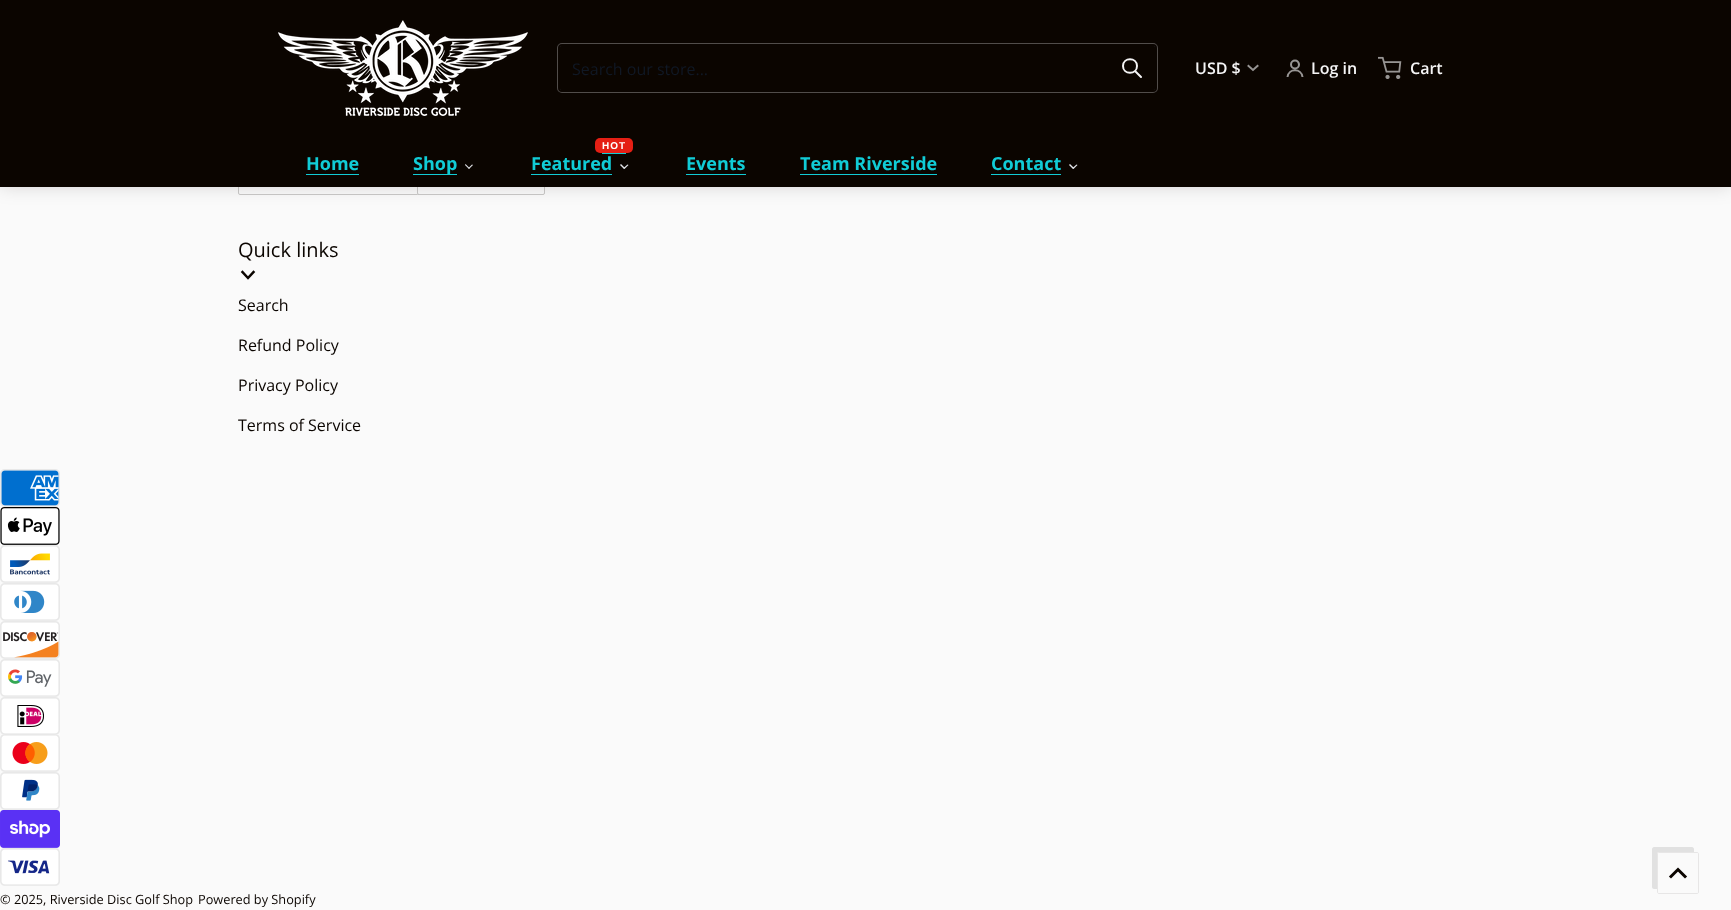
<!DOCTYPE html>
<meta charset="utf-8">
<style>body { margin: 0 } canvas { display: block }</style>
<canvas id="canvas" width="1731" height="910"></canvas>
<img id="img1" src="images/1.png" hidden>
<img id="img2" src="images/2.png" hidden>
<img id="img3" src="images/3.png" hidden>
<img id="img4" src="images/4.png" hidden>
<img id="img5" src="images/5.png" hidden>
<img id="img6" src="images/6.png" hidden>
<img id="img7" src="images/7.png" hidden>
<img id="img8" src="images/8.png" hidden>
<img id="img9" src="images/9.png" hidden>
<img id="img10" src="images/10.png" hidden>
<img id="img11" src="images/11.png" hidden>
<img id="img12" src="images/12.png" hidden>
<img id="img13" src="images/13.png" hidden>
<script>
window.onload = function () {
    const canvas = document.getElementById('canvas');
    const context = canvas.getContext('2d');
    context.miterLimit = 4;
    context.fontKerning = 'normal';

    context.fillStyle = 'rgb(250, 250, 250)';
    context.fillRect(0, 0, 1731, 910);
    context.beginPath();
    context.roundRect(238.5, 149.5, 305, 45, 1.5);
    context.strokeStyle = 'rgb(202, 201, 200)';
    context.stroke();
    context.beginPath();
    context.roundRect(417, 149, 128, 46, 2);
    context.fill();
    context.beginPath();
    context.roundRect(417.5, 149.5, 127, 45, 1.5);
    context.strokeStyle = 'rgba(11, 5, 0, 0.2)';
    context.stroke();
    context.fillStyle = 'rgba(11, 5, 0, 0.2)';
    context.filter = 'blur(10px)';
    context.beginPath();
    context.rect(0, -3, 1731, 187);
    context.fill();
    context.filter = 'none';
    context.fillStyle = 'rgb(11, 5, 0)';
    context.fillRect(0, 0, 1731, 187);
    context.drawImage(document.getElementById('img1'), 278, 20, 250, 96);
    context.beginPath();
    context.roundRect(558.5, 44.5, 598, 47, 3.5);
    context.strokeStyle = 'rgb(81, 77, 74)';
    context.lineWidth = 3;
    context.stroke();
    context.beginPath();
    context.roundRect(559, 45, 597, 46, 3);
    context.strokeStyle = 'rgb(11, 5, 0)';
    context.lineWidth = 2;
    context.stroke();
    context.beginPath();
    context.roundRect(560, 46, 595, 44, 2);
    context.fill();
    context.beginPath();
    context.moveTo(1141, 77);
    context.lineTo(1135, 71);
    context.moveTo(1137, 66);
    context.bezierCurveTo(1137, 75, 1123, 75, 1123, 66);
    context.bezierCurveTo(1123, 57, 1137, 57, 1137, 66);
    context.closePath();
    context.strokeStyle = 'rgb(245, 245, 245)';
    context.lineCap = 'round';
    context.lineJoin = 'round';
    context.stroke();
    context.beginPath();
    context.moveTo(1248.5, 66);
    context.lineTo(1253, 70);
    context.lineTo(1257.5, 66);
    context.strokeStyle = 'rgb(151, 149, 147)';
    context.lineCap = 'square';
    context.lineJoin = 'miter';
    context.stroke();
    context.beginPath();
    context.arc(1295, 64.5, 4, 0, 2 * Math.PI);
    context.stroke();
    context.beginPath();
    context.moveTo(1302.5, 77);
    context.bezierCurveTo(1301.5, 68, 1288.5, 68, 1287.5, 77);
    context.strokeStyle = 'rgba(245, 245, 245, 0.6)';
    context.lineCap = 'butt';
    context.stroke();
    context.drawImage(document.getElementById('img2'), 1378, 56, 24, 23);
    context.fillStyle = 'rgb(17, 204, 214)';
    context.fillRect(306, 174, 53, 1);
    context.fillRect(413, 174, 44, 1);
    context.fillStyle = 'rgb(229, 231, 235)';
    context.beginPath();
    context.moveTo(472, 164.5);
    context.lineTo(473, 165);
    context.lineTo(469, 169);
    context.lineTo(468.5, 168);
    context.closePath();
    context.fill();
    context.beginPath();
    context.moveTo(465.5, 164);
    context.lineTo(469.5, 168);
    context.lineTo(469, 169);
    context.lineTo(465, 165);
    context.closePath();
    context.fill();
    context.fillStyle = 'rgb(229, 31, 20)';
    context.beginPath();
    context.roundRect(595, 138, 38, 15, 5);
    context.fill();
    context.fillStyle = 'rgb(17, 204, 214)';
    context.fillRect(602, 153, 24, 1);
    context.fillRect(531, 174, 81, 1);
    context.fillStyle = 'rgb(229, 231, 235)';
    context.beginPath();
    context.moveTo(627.5, 164.5);
    context.lineTo(628.5, 165);
    context.lineTo(624.5, 169);
    context.lineTo(623.5, 168);
    context.closePath();
    context.fill();
    context.beginPath();
    context.moveTo(621, 164);
    context.lineTo(625, 168);
    context.lineTo(624, 169);
    context.lineTo(620, 165);
    context.closePath();
    context.fill();
    context.fillStyle = 'rgb(17, 204, 214)';
    context.fillRect(686, 174, 60, 1);
    context.fillRect(800, 174, 137, 1);
    context.fillRect(991, 174, 70, 1);
    context.fillStyle = 'rgb(229, 231, 235)';
    context.beginPath();
    context.moveTo(1076.5, 164.5);
    context.lineTo(1077.5, 165);
    context.lineTo(1073.5, 169);
    context.lineTo(1072.5, 168);
    context.closePath();
    context.fill();
    context.beginPath();
    context.moveTo(1070, 164);
    context.lineTo(1074, 168);
    context.lineTo(1073, 169);
    context.lineTo(1069, 165);
    context.closePath();
    context.fill();
    context.beginPath();
    context.moveTo(242.5, 272);
    context.lineTo(248, 278);
    context.lineTo(253.5, 272);
    context.strokeStyle = 'rgb(11, 5, 0)';
    context.lineWidth = 2.5;
    context.lineCap = 'square';
    context.stroke();
    context.drawImage(document.getElementById('img3'), 0, 469, 60, 38);
    context.drawImage(document.getElementById('img4'), 0, 507, 60, 38);
    context.drawImage(document.getElementById('img5'), 0, 545, 60, 38);
    context.drawImage(document.getElementById('img6'), 0, 583, 60, 38);
    context.drawImage(document.getElementById('img7'), 0, 621, 60, 38);
    context.drawImage(document.getElementById('img8'), 0, 659, 60, 38);
    context.drawImage(document.getElementById('img9'), 0, 697, 60, 37);
    context.drawImage(document.getElementById('img10'), 0, 734, 60, 38);
    context.drawImage(document.getElementById('img11'), 0, 772, 60, 38);
    context.drawImage(document.getElementById('img12'), 0, 810, 60, 38);
    context.drawImage(document.getElementById('img13'), 0, 848, 60, 38);
    context.fillStyle = 'rgb(225, 225, 225)';
    context.beginPath();
    context.moveTo(1694, 852);
    context.lineTo(1659, 852);
    context.bezierCurveTo(1658, 852, 1657, 853, 1657, 854);
    context.lineTo(1657, 889);
    context.lineTo(1654, 889);
    context.bezierCurveTo(1653, 889, 1652, 888, 1652, 887);
    context.lineTo(1652, 849);
    context.bezierCurveTo(1652, 848, 1653, 847, 1654, 847);
    context.lineTo(1692, 847);
    context.bezierCurveTo(1693, 847, 1694, 848, 1694, 849);
    context.closePath();
    context.fill();
    context.fillStyle = 'rgb(250, 250, 250)';
    context.beginPath();
    context.moveTo(1697, 894);
    context.lineTo(1659, 894);
    context.bezierCurveTo(1658, 894, 1657, 893, 1657, 892);
    context.lineTo(1657, 854);
    context.bezierCurveTo(1657, 853, 1658, 852, 1659, 852);
    context.lineTo(1697, 852);
    context.bezierCurveTo(1698, 852, 1699, 853, 1699, 854);
    context.lineTo(1699, 892);
    context.bezierCurveTo(1699, 893, 1698, 894, 1697, 894);
    context.closePath();
    context.fill();
    context.beginPath();
    context.moveTo(1697, 893.5);
    context.lineTo(1659, 893.5);
    context.bezierCurveTo(1658, 893.5, 1657.5, 893, 1657.5, 892);
    context.lineTo(1657.5, 854);
    context.bezierCurveTo(1657.5, 853, 1658, 852.5, 1659, 852.5);
    context.lineTo(1697, 852.5);
    context.bezierCurveTo(1698, 852.5, 1698.5, 853, 1698.5, 854);
    context.lineTo(1698.5, 892);
    context.bezierCurveTo(1698.5, 893, 1698, 893.5, 1697, 893.5);
    context.closePath();
    context.strokeStyle = 'rgb(231, 230, 230)';
    context.lineWidth = 1;
    context.lineCap = 'butt';
    context.stroke();
    context.beginPath();
    context.moveTo(1685, 876.5);
    context.lineTo(1678, 869.5);
    context.lineTo(1671, 876.5);
    context.strokeStyle = 'rgb(11, 5, 0)';
    context.lineWidth = 3;
    context.lineCap = 'square';
    context.stroke();
    context.font = '16px Open Sans';
    context.fillStyle = 'rgb(16, 24, 36)';
    context.fillText('Search our store...', 572, 75);
    context.font = '600 16px Open Sans';
    context.fillStyle = 'rgb(245, 245, 245)';
    context.fillText('USD $', 1195, 74);
    context.fillText('Log in', 1311, 74);
    context.fillText('Cart', 1410, 74);
    context.font = 'bold 18px Open Sans';
    context.fillStyle = 'rgb(17, 204, 214)';
    context.fillText('Home', 306, 170);
    context.fillText('Shop', 413, 170);
    context.letterSpacing = '1px';
    context.font = 'bold 10px Liberation Sans';
    context.fillStyle = 'rgb(255, 255, 255)';
    context.fillText('HOT', 602, 149);
    context.letterSpacing = '0px';
    context.font = 'bold 18px Open Sans';
    context.fillStyle = 'rgb(17, 204, 214)';
    context.fillText('Featured', 531, 170);
    context.fillText('Events', 686, 170);
    context.fillText('Team Riverside', 800, 170);
    context.fillText('Contact', 991, 170);
    context.font = '20px Open Sans';
    context.fillStyle = 'rgb(11, 5, 0)';
    context.fillText('Quick links', 238, 257);
    context.font = '16px Open Sans';
    context.fillText('Search', 238, 311);
    context.fillText('Refund Policy', 238, 351);
    context.fillText('Privacy Policy', 238, 391);
    context.fillText('Terms of Service', 238, 431);
    context.font = '12.75px Open Sans';
    context.fillText('© 2025, Riverside Disc Golf Shop', 0, 904);
    context.fillText('Powered by Shopify', 198, 904);
};
</script>
